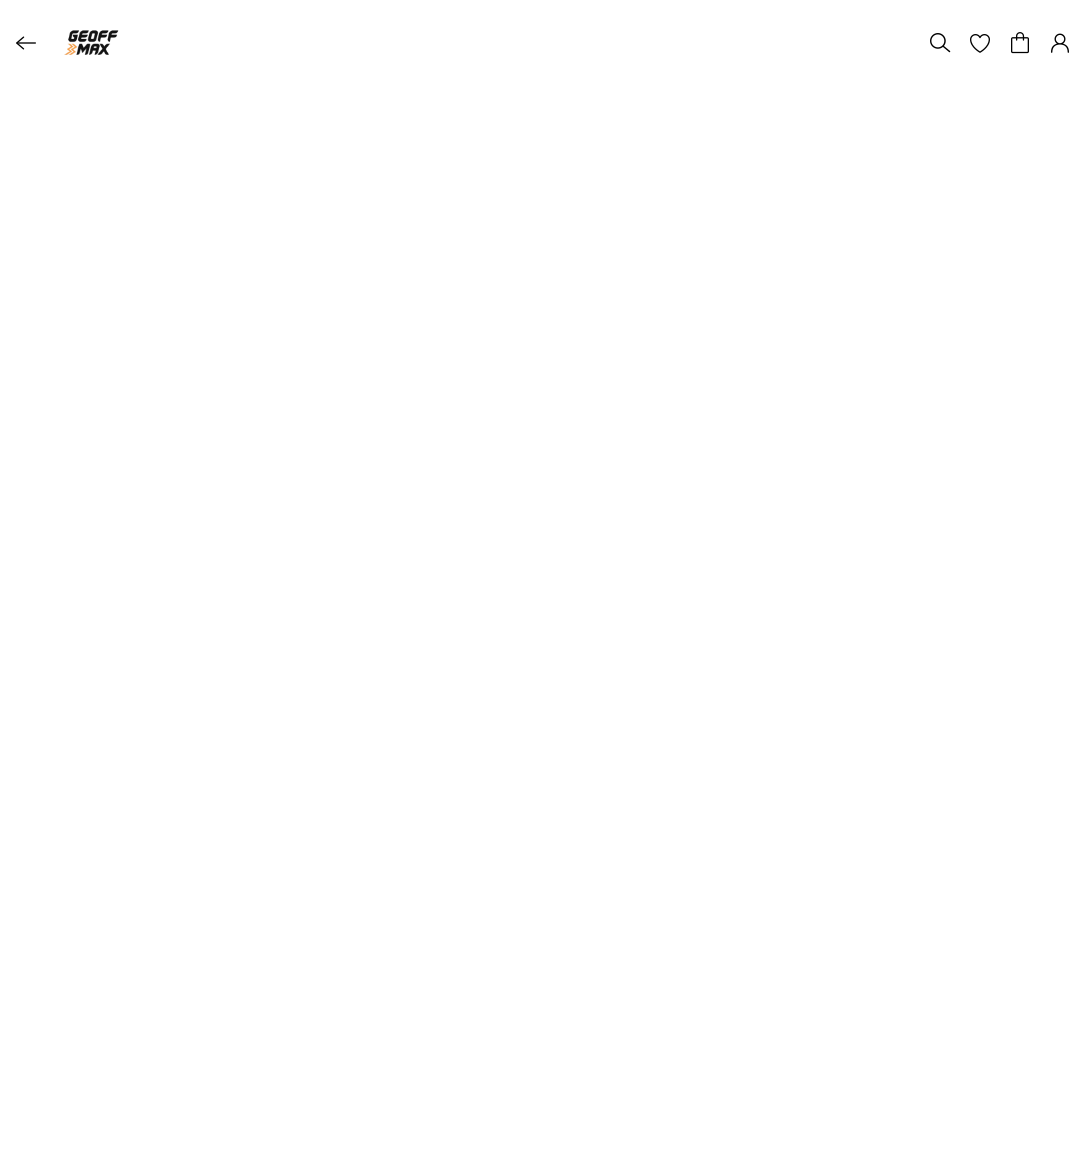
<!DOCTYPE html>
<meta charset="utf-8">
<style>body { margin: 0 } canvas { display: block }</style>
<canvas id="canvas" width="1086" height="1169"></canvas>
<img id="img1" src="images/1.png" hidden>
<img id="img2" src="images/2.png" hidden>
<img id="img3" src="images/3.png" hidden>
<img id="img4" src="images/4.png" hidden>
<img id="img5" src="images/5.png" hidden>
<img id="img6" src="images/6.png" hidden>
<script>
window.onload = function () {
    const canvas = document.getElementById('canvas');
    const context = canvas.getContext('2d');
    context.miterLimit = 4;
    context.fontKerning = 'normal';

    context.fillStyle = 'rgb(255, 255, 255)';
    context.fillRect(0, 0, 1086, 1169);
    context.drawImage(document.getElementById('img1'), 16, 36, 20, 14);
    context.drawImage(document.getElementById('img2'), 64, 30, 55, 25);
    context.drawImage(document.getElementById('img3'), 930, 33, 21, 20);
    context.drawImage(document.getElementById('img4'), 970, 34, 20, 19);
    context.drawImage(document.getElementById('img5'), 1011, 32, 18, 22);
    context.drawImage(document.getElementById('img6'), 1051, 33, 18, 20);
};
</script>
